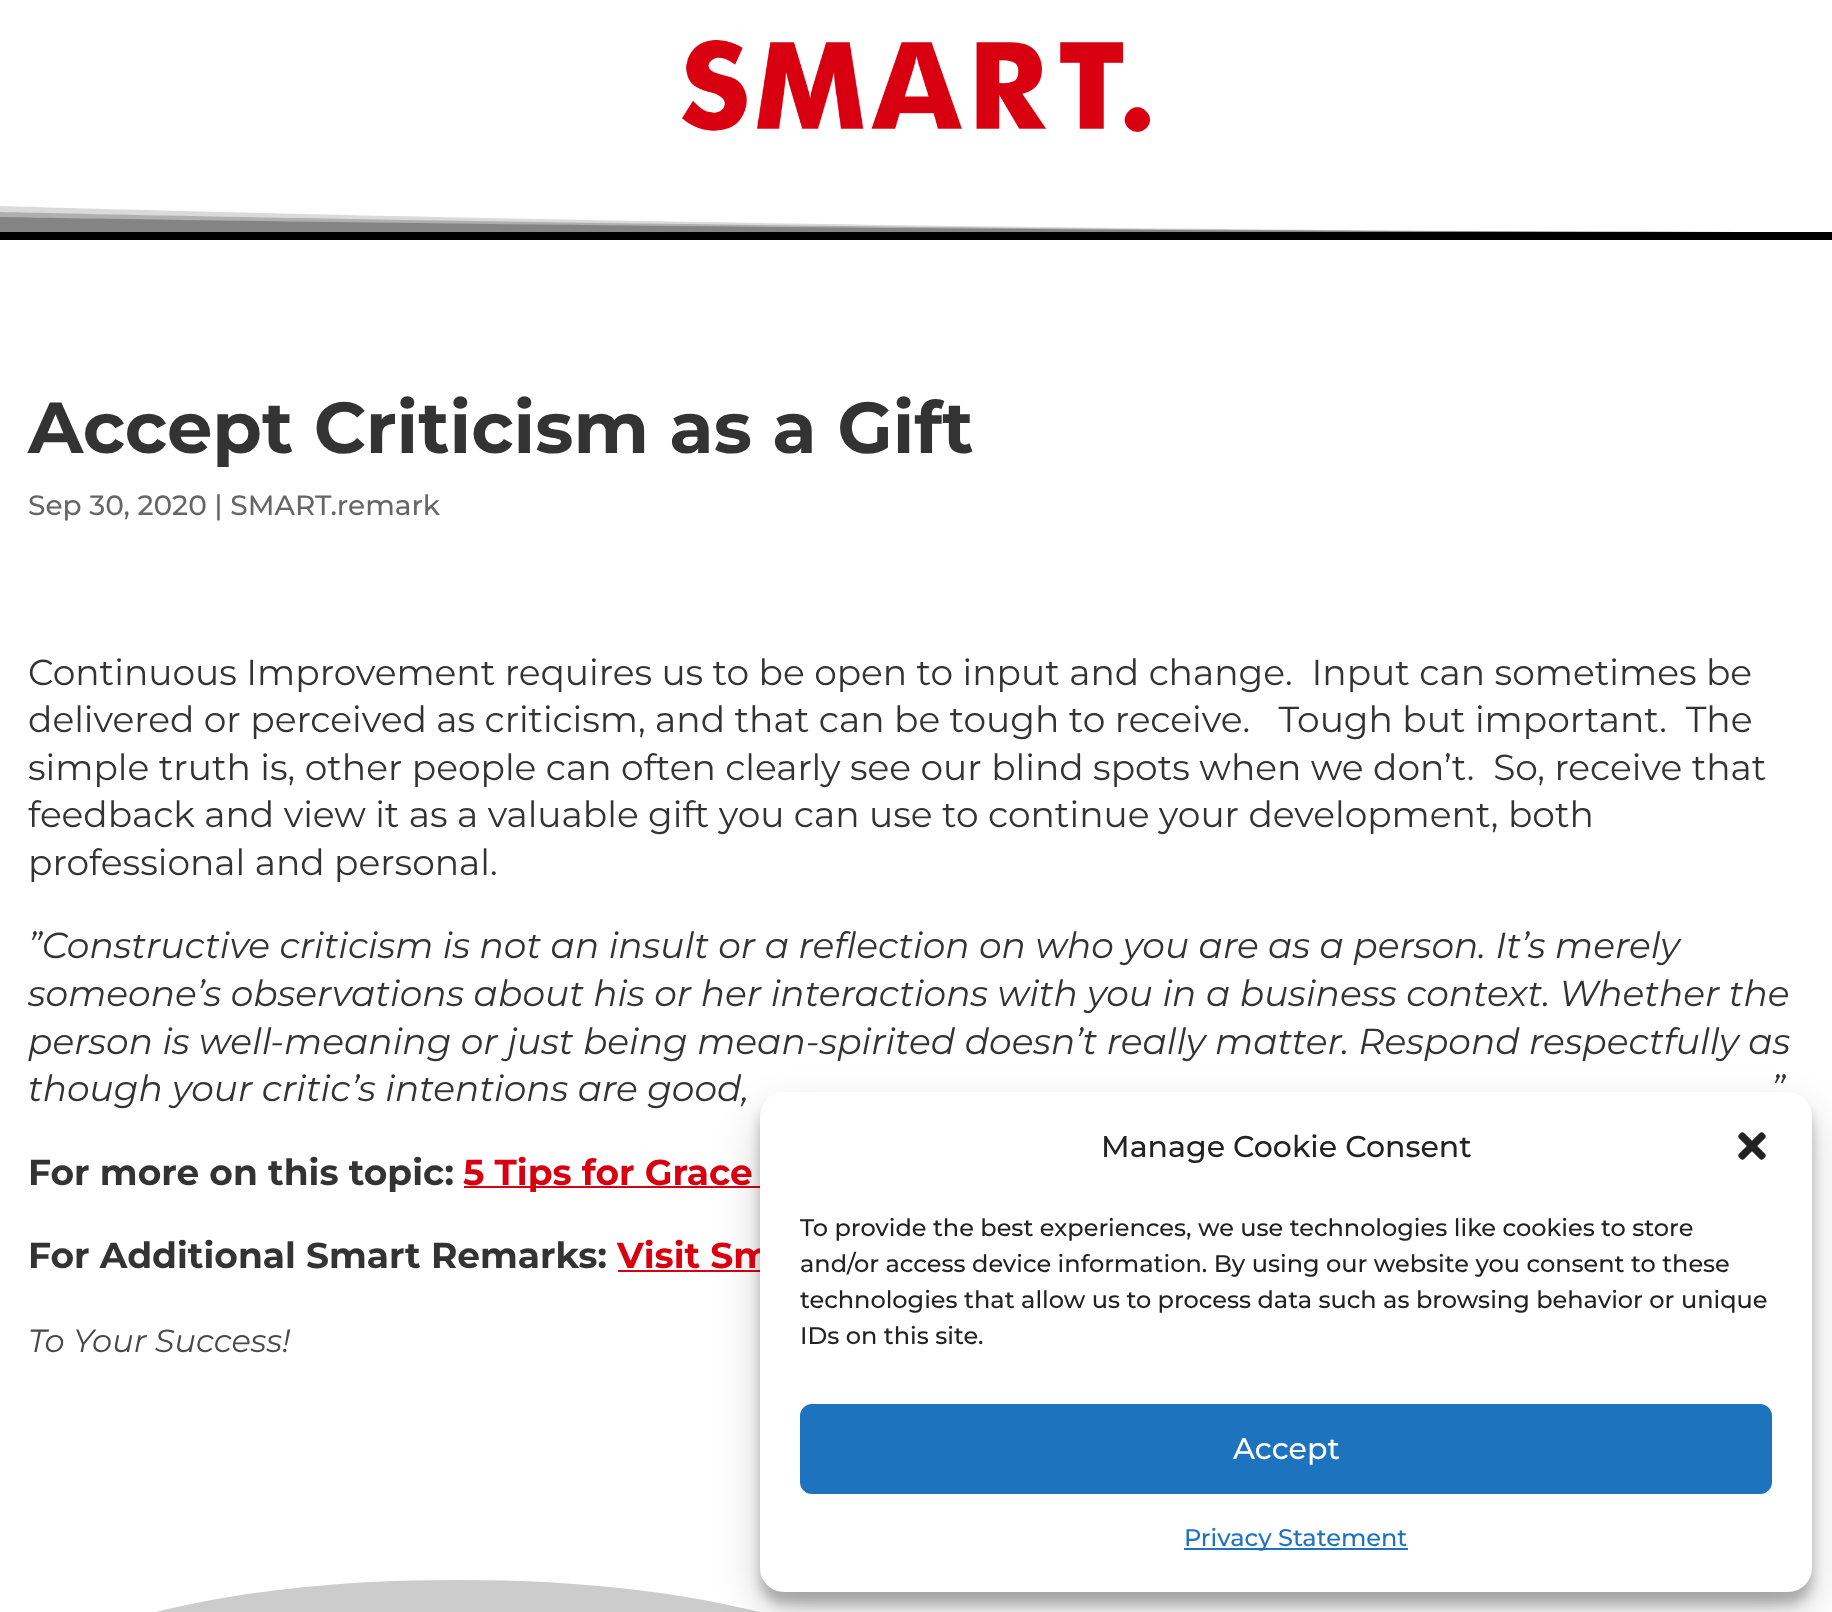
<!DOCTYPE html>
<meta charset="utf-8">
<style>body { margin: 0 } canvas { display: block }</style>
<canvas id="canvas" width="1832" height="1612"></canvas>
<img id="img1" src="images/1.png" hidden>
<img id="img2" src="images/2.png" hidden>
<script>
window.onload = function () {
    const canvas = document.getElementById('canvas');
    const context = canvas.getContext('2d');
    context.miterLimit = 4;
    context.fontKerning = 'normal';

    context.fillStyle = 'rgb(255, 255, 255)';
    context.fillRect(0, 0, 1832, 1612);
    context.fillStyle = 'rgb(0, 0, 0)';
    context.fillRect(0, 232, 1832, 8);
    context.drawImage(document.getElementById('img1'), 682, 40, 468, 92);
    context.fillStyle = 'rgb(218, 218, 218)';
    context.beginPath();
    context.moveTo(0, 232);
    context.lineTo(1832, 232);
    context.bezierCurveTo(820, 232, 0, 206, 0, 206);
    context.closePath();
    context.fill();
    context.fillStyle = 'rgba(132, 132, 132, 0.5)';
    context.beginPath();
    context.moveTo(0, 232);
    context.lineTo(1832, 232);
    context.bezierCurveTo(820, 232, 0, 212, 0, 212);
    context.closePath();
    context.fill();
    context.fillStyle = 'rgb(132, 132, 132)';
    context.beginPath();
    context.moveTo(0, 232);
    context.lineTo(1832, 232);
    context.bezierCurveTo(820, 232, 0, 217, 0, 217);
    context.closePath();
    context.fill();
    context.fillStyle = 'rgb(216, 0, 16)';
    context.fillRect(464, 1186, 296, 2);
    context.fillRect(618, 1270, 142, 2);
    context.fillStyle = 'rgb(204, 204, 204)';
    context.fillRect(155, 1580, 605, 32);
    context.fillStyle = 'rgb(255, 255, 255)';
    context.beginPath();
    context.moveTo(458, 1580);
    context.bezierCurveTo(229, 1580, 114, 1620, 0, 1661);
    context.lineTo(0, 1526);
    context.lineTo(1832, 1526);
    context.lineTo(1832, 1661);
    context.bezierCurveTo(1718, 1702, 1603, 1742, 1374, 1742);
    context.bezierCurveTo(916, 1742, 916, 1580, 458, 1580);
    context.closePath();
    context.fill();
    context.fillStyle = 'rgba(0, 0, 0, 0.23)';
    context.filter = 'blur(6px)';
    context.beginPath();
    context.roundRect(760, 1104, 1052, 500, 24);
    context.fill();
    context.filter = 'none';
    context.fillStyle = 'rgba(0, 0, 0, 0.19)';
    context.filter = 'blur(20px)';
    context.beginPath();
    context.roundRect(760, 1112, 1052, 500, 24);
    context.fill();
    context.filter = 'none';
    context.font = 'bold 72px Montserrat';
    context.fillStyle = 'rgb(51, 51, 51)';
    context.fillText('Accept Criticism as a Gift', 28, 453);
    context.font = '500 28px Montserrat';
    context.fillStyle = 'rgb(102, 102, 102)';
    context.fillText('Sep 30, 2020 | SMART.remark', 28, 515);
    context.font = '36px Montserrat';
    context.fillStyle = 'rgb(51, 51, 51)';
    context.fillText('Continuous Improvement requires us to be open to input and change.  Input can sometimes be', 28, 685);
    context.fillText('delivered or perceived as criticism, and that can be tough to receive.   Tough but important.  The', 28, 732);
    context.fillText('simple truth is, other people can often clearly see our blind spots when we don’t.  So, receive that', 28, 780);
    context.fillText('feedback and view it as a valuable gift you can use to continue your development, both', 28, 827);
    context.fillText('professional and personal.', 28, 875);
    context.font = 'italic 36px Montserrat';
    context.fillText('”Constructive criticism is not an insult or a reflection on who you are as a person. It’s merely', 28, 958);
    context.fillText('someone’s observations about his or her interactions with you in a business context. Whether the', 28, 1006);
    context.fillText('person is well-meaning or just being mean-spirited doesn’t really matter. Respond respectfully as', 28, 1054);
    context.fillText('though your critic’s intentions are good,', 28, 1101);
    context.fillText('”', 1771, 1101);
    context.font = 'bold 36px Montserrat';
    context.fillText('For more on this topic:', 28, 1185);
    context.fillStyle = 'rgb(216, 0, 16)';
    context.fillText('5 Tips for Grace', 463, 1185);
    context.fillStyle = 'rgb(51, 51, 51)';
    context.fillText('For Additional Smart Remarks:', 28, 1268);
    context.fillStyle = 'rgb(216, 0, 16)';
    context.fillText('Visit Sm', 617, 1268);
    context.font = 'italic 32px Montserrat';
    context.fillStyle = 'rgb(73, 73, 73)';
    context.fillText('To Your Success!', 28, 1352);
    context.fillStyle = 'rgb(255, 255, 255)';
    context.beginPath();
    context.roundRect(760, 1092, 1052, 500, 24);
    context.fill();
    context.font = '500 30px Montserrat';
    context.fillStyle = 'rgb(34, 34, 34)';
    context.fillText('Manage Cookie Consent', 1101, 1157);
    context.drawImage(document.getElementById('img2'), 1738, 1132, 28, 28);
    context.font = '500 24px Montserrat';
    context.fillText('To provide the best experiences, we use technologies like cookies to store', 800, 1236);
    context.fillText('and/or access device information. By using our website you consent to these', 800, 1272);
    context.fillText('technologies that allow us to process data such as browsing behavior or unique', 800, 1308);
    context.fillText('IDs on this site.', 800, 1344);
    context.fillStyle = 'rgb(30, 115, 190)';
    context.beginPath();
    context.roundRect(801, 1405, 970, 88, 11);
    context.fill();
    context.strokeStyle = 'rgb(30, 115, 190)';
    context.lineWidth = 2;
    context.stroke();
    context.font = '500 30px Montserrat';
    context.fillStyle = 'rgb(255, 255, 255)';
    context.fillText('Accept', 1233, 1459);
    context.fillStyle = 'rgb(30, 115, 190)';
    context.fillRect(1184, 1548, 224, 2);
    context.font = '500 24px Montserrat';
    context.fillText('Privacy Statement', 1184, 1546);
};
</script>
